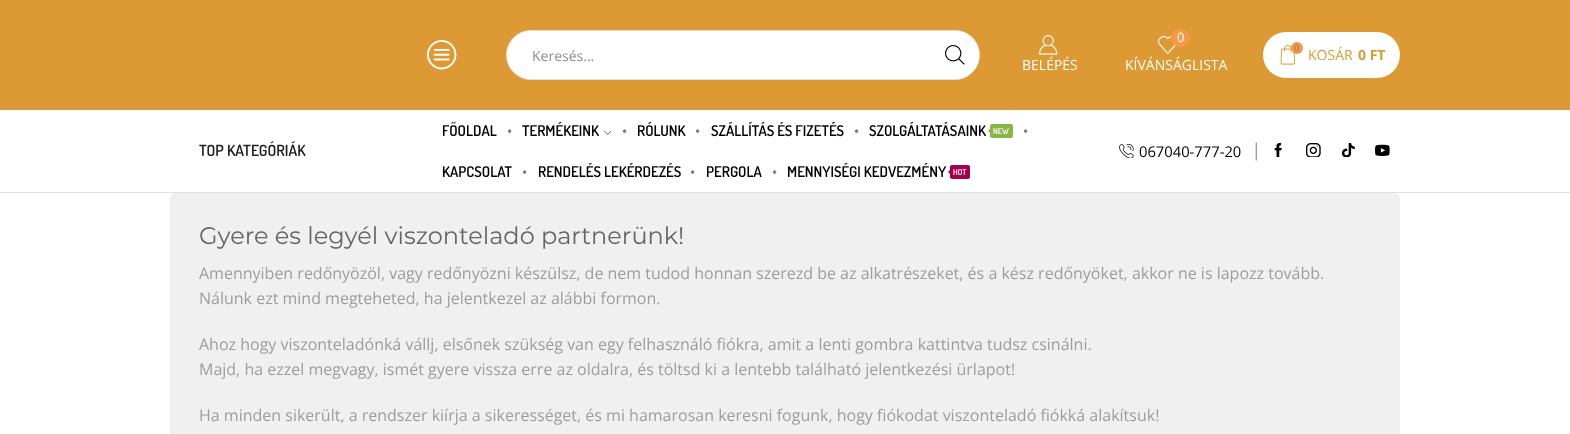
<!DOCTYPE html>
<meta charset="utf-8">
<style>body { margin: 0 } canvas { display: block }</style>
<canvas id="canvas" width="1570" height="434"></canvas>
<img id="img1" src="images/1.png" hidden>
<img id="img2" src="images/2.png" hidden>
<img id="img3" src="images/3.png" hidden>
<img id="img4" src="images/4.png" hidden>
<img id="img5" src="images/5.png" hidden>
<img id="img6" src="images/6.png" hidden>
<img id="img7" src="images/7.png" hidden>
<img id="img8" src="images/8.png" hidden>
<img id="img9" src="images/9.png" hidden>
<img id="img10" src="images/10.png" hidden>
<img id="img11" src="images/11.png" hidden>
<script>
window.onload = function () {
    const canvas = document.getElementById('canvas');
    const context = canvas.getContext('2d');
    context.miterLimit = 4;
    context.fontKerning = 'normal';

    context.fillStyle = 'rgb(255, 255, 255)';
    context.fillRect(0, 0, 1570, 434);
    context.fillStyle = 'rgb(221, 153, 51)';
    context.fillRect(0, 0, 1570, 110);
    context.drawImage(document.getElementById('img1'), 427, 40, 30, 30);
    context.fillStyle = 'rgb(255, 255, 255)';
    context.beginPath();
    context.roundRect(506.5, 30.5, 473, 49, 24.5);
    context.fill();
    context.strokeStyle = 'rgb(225, 225, 225)';
    context.stroke();
    context.save();
    context.beginPath();
    context.roundRect(507, 31, 472, 48, 24);
    context.clip();
    context.fillRect(522, 31, 404, 48);
    context.restore();
    context.beginPath();
    context.arc(955, 55, 24, 0, 2 * Math.PI);
    context.fill();
    context.drawImage(document.getElementById('img2'), 945, 45, 20, 20);
    context.drawImage(document.getElementById('img3'), 1158, 36, 18, 18);
    context.fillStyle = 'rgb(246, 153, 70)';
    context.beginPath();
    context.roundRect(1171, 29, 19, 18, 9);
    context.fill();
    context.fillStyle = 'rgb(255, 255, 255)';
    context.beginPath();
    context.roundRect(1263, 32, 137, 46, 23);
    context.fill();
    context.drawImage(document.getElementById('img4'), 1280, 45, 15, 20);
    context.fillStyle = 'rgb(246, 153, 70)';
    context.beginPath();
    context.arc(1297, 48, 6, 0, 2 * Math.PI);
    context.fill();
    context.drawImage(document.getElementById('img5'), 1039, 35, 19, 20);
    context.fillStyle = 'rgb(225, 225, 225)';
    context.fillRect(0, 192, 1570, 1);
    context.drawImage(document.getElementById('img6'), 604, 130, 7, 5);
    context.fillStyle = 'rgb(136, 182, 67)';
    context.beginPath();
    context.roundRect(990, 124, 23, 14, 2);
    context.fill();
    context.beginPath();
    context.moveTo(991, 128);
    context.lineTo(991, 134);
    context.lineTo(988, 131);
    context.closePath();
    context.fill();
    context.fillStyle = 'rgb(164, 0, 79)';
    context.beginPath();
    context.roundRect(950, 165, 20, 14, 2);
    context.fill();
    context.beginPath();
    context.moveTo(951, 169);
    context.lineTo(951, 175);
    context.lineTo(948, 172);
    context.closePath();
    context.fill();
    context.drawImage(document.getElementById('img7'), 1119, 144, 15, 14);
    context.drawImage(document.getElementById('img8'), 1274, 143, 8, 14);
    context.drawImage(document.getElementById('img9'), 1306, 143, 15, 14);
    context.drawImage(document.getElementById('img10'), 1341, 143, 14, 14);
    context.drawImage(document.getElementById('img11'), 1375, 144, 15, 12);
    context.fillStyle = 'rgb(240, 240, 240)';
    context.beginPath();
    context.roundRect(170, 193, 1230, 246, 5);
    context.fill();
    context.font = '14px Open Sans';
    context.fillStyle = 'rgb(142, 142, 142)';
    context.fillText('Keresés...', 532, 61);
    context.font = '13px Open Sans';
    context.fillStyle = 'rgb(255, 255, 255)';
    context.fillText('0', 1177, 42);
    context.font = '14px Open Sans';
    context.fillText('KÍVÁNSÁGLISTA', 1125, 70);
    context.font = '9px Open Sans';
    context.fillStyle = 'rgb(127, 127, 127)';
    context.fillText('0', 1294, 51);
    context.font = '14px Open Sans';
    context.fillStyle = 'rgb(221, 153, 51)';
    context.fillText('KOSÁR', 1308, 60);
    context.font = 'bold 14px Open Sans';
    context.fillText('0 FT', 1358, 60);
    context.font = '14px Open Sans';
    context.fillStyle = 'rgb(255, 255, 255)';
    context.fillText('BELÉPÉS', 1022, 70);
    context.font = '600 15.5px Dosis';
    context.fillStyle = 'rgb(34, 34, 34)';
    context.fillText('TOP KATEGÓRIÁK', 199, 156);
    context.font = '600 14.75px Dosis';
    context.fillStyle = 'rgb(0, 0, 0)';
    context.fillText('FŐOLDAL', 442, 136);
    context.font = '14.75px Liberation Serif';
    context.fillStyle = 'rgb(127, 127, 127)';
    context.fillText('•', 507, 136);
    context.font = '600 14.75px Dosis';
    context.fillStyle = 'rgb(0, 0, 0)';
    context.fillText('TERMÉKEINK', 522, 136);
    context.font = '14.75px Liberation Serif';
    context.fillStyle = 'rgb(127, 127, 127)';
    context.fillText('•', 622, 136);
    context.font = '600 14.75px Dosis';
    context.fillStyle = 'rgb(0, 0, 0)';
    context.fillText('RÓLUNK', 637, 136);
    context.font = '14.75px Liberation Serif';
    context.fillStyle = 'rgb(127, 127, 127)';
    context.fillText('•', 695, 136);
    context.font = '600 14.75px Dosis';
    context.fillStyle = 'rgb(0, 0, 0)';
    context.fillText('SZÁLLÍTÁS ÉS FIZETÉS', 711, 136);
    context.font = '14.75px Liberation Serif';
    context.fillStyle = 'rgb(127, 127, 127)';
    context.fillText('•', 854, 136);
    context.font = '600 14.75px Dosis';
    context.fillStyle = 'rgb(0, 0, 0)';
    context.fillText('SZOLGÁLTATÁSAINK', 869, 136);
    context.font = '600 8px Dosis';
    context.fillStyle = 'rgb(255, 255, 255)';
    context.fillText('NEW', 993, 134);
    context.font = '14.75px Liberation Serif';
    context.fillStyle = 'rgb(127, 127, 127)';
    context.fillText('•', 1023, 136);
    context.font = '600 14.75px Dosis';
    context.fillStyle = 'rgb(0, 0, 0)';
    context.fillText('KAPCSOLAT', 442, 177);
    context.font = '14.75px Liberation Serif';
    context.fillStyle = 'rgb(127, 127, 127)';
    context.fillText('•', 522, 177);
    context.font = '600 14.75px Dosis';
    context.fillStyle = 'rgb(0, 0, 0)';
    context.fillText('RENDELÉS LEKÉRDEZÉS', 538, 177);
    context.font = '14.75px Liberation Serif';
    context.fillStyle = 'rgb(127, 127, 127)';
    context.fillText('•', 690, 177);
    context.font = '600 14.75px Dosis';
    context.fillStyle = 'rgb(0, 0, 0)';
    context.fillText('PERGOLA', 706, 177);
    context.font = '14.75px Liberation Serif';
    context.fillStyle = 'rgb(127, 127, 127)';
    context.fillText('•', 772, 177);
    context.font = '600 14.75px Dosis';
    context.fillStyle = 'rgb(0, 0, 0)';
    context.fillText('MENNYISÉGI KEDVEZMÉNY', 787, 177);
    context.font = '600 8px Dosis';
    context.fillStyle = 'rgb(255, 255, 255)';
    context.fillText('HOT', 953, 175);
    context.font = '14.75px Open Sans';
    context.fillStyle = 'rgb(0, 0, 0)';
    context.fillText('067040-777-20', 1139, 157);
    context.font = '14.75px Liberation Serif';
    context.fillStyle = 'rgb(127, 127, 127)';
    context.fillText('│', 1251, 156);
    context.font = '24px Montserrat';
    context.fillStyle = 'rgb(102, 102, 102)';
    context.fillText('Gyere és legyél viszonteladó partnerünk!', 199, 244);
    context.font = '16px Open Sans';
    context.fillStyle = 'rgb(157, 157, 158)';
    context.fillText('Amennyiben redőnyözöl, vagy redőnyözni készülsz, de nem tudod honnan szerezd be az alkatrészeket, és a kész redőnyöket, akkor ne is lapozz tovább.', 199, 279);
    context.fillText('Nálunk ezt mind megteheted, ha jelentkezel az alábbi formon.', 199, 304);
    context.fillText('Ahoz hogy viszonteladónká vállj, elsőnek szükség van egy felhasználó fiókra, amit a lenti gombra kattintva tudsz csinálni.', 199, 350);
    context.fillText('Majd, ha ezzel megvagy, ismét gyere vissza erre az oldalra, és töltsd ki a lentebb található jelentkezési ürlapot!', 199, 375);
    context.fillText('Ha minden sikerült, a rendszer kiírja a sikerességet, és mi hamarosan keresni fogunk, hogy fiókodat viszonteladó fiókká alakítsuk!', 199, 421);
};
</script>
